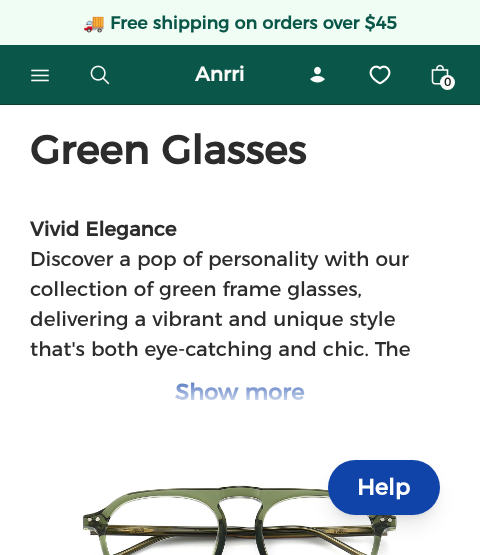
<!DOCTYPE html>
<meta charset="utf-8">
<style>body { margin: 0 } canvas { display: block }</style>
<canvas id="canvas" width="480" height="555"></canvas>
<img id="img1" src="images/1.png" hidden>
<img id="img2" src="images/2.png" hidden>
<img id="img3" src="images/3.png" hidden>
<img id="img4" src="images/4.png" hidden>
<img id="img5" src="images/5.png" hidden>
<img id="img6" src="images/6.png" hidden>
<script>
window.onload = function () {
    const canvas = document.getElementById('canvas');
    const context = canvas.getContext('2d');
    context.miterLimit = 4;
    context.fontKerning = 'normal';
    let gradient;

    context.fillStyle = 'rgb(240, 253, 244)';
    context.fillRect(0, 0, 480, 555);
    context.fillStyle = 'rgb(10, 87, 73)';
    context.fillRect(0, 45, 480, 59);
    context.fillStyle = 'rgb(14, 61, 52)';
    context.fillRect(0, 104, 480, 1);
    context.drawImage(document.getElementById('img1'), 31, 69, 18, 13);
    context.drawImage(document.getElementById('img2'), 90, 65, 20, 20);
    context.drawImage(document.getElementById('img3'), 310, 66, 15, 17);
    context.drawImage(document.getElementById('img4'), 369, 65, 22, 20);
    context.drawImage(document.getElementById('img5'), 431, 64, 18, 21);
    context.fillStyle = 'rgb(250, 250, 249)';
    context.beginPath();
    context.arc(447.5, 82.5, 7.5, 0, 2 * Math.PI);
    context.fill();
    context.fillStyle = 'rgb(255, 255, 255)';
    context.fillRect(0, 105, 480, 450);
    context.drawImage(document.getElementById('img6'), 82, 485, 315, 70);
    context.fillStyle = 'rgba(0, 0, 0, 0.1)';
    context.filter = 'blur(4px)';
    context.beginPath();
    context.roundRect(333, 470, 102, 45, 22.5);
    context.fill();
    context.filter = 'none';
    context.filter = 'blur(9.5px)';
    context.beginPath();
    context.roundRect(331, 476, 105, 48, 24);
    context.fill();
    context.filter = 'none';
    context.fillStyle = 'rgb(17, 68, 169)';
    context.beginPath();
    context.roundRect(328, 460, 112, 55, 27.5);
    context.fill();
    context.font = 'bold 17.5px Noto Color Emoji';
    context.fillStyle = 'rgb(10, 87, 73)';
    context.fillText('🚚', 83, 29);
    context.font = 'italic bold 17.5px Montserrat';
    context.fillText('Free shipping on orders over $45', 110, 29);
    context.font = 'italic bold 20px Montserrat';
    context.fillStyle = 'rgb(250, 250, 249)';
    context.fillText('Anrri', 195, 81);
    context.font = 'italic 12px Montserrat';
    context.fillStyle = 'rgb(20, 20, 20)';
    context.fillText('0', 444, 86);
    context.font = 'italic bold 40px Montserrat';
    context.fillStyle = 'rgb(44, 44, 44)';
    context.fillText('Green Glasses', 30, 164);
    context.font = 'italic bold 20px Montserrat';
    context.fillText('Vivid Elegance', 30, 236);
    context.font = 'italic 20px Montserrat';
    context.fillText('Discover a pop of personality with our', 30, 266);
    context.fillText('collection of green frame glasses,', 30, 296);
    context.fillText('delivering a vibrant and unique style', 30, 326);
    context.fillText('that\'s both eye-catching and chic. The', 30, 356);
    context.font = 'italic bold 22.5px Montserrat';
    context.fillStyle = 'rgb(17, 68, 169)';
    context.fillText('Show more', 175, 400);
    gradient = context.createLinearGradient(240, 370, 240, 410);
    gradient.addColorStop(0, 'rgba(255, 255, 255, 0)');
    gradient.addColorStop(1, 'rgb(255, 255, 255)');
    context.fillStyle = gradient;
    context.fillRect(176, 383, 128, 18);
    context.fillStyle = 'rgb(255, 255, 255)';
    context.fillText('Help', 357, 495);
};
</script>
